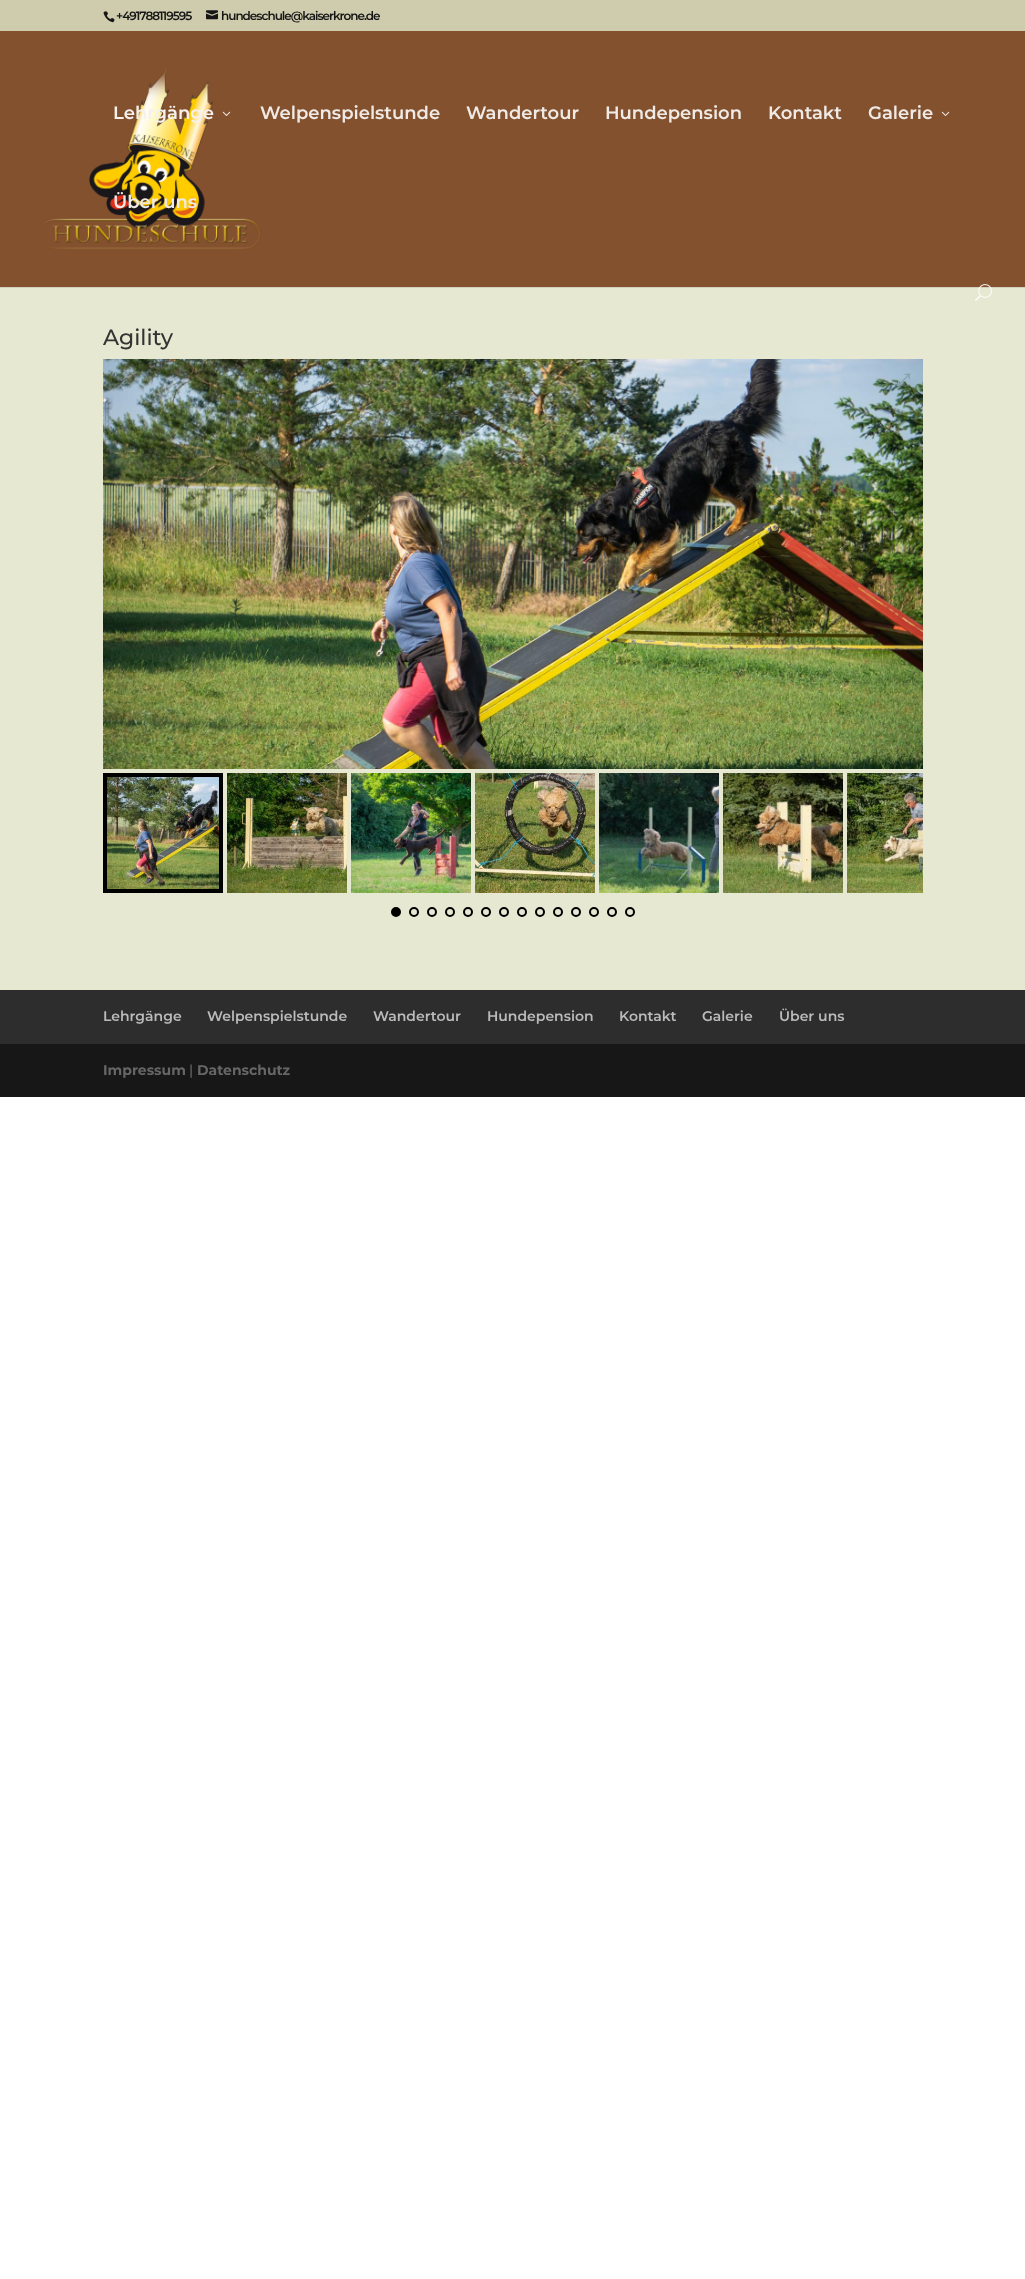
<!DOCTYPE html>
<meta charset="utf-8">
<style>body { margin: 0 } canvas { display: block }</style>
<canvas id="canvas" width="1025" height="2279"></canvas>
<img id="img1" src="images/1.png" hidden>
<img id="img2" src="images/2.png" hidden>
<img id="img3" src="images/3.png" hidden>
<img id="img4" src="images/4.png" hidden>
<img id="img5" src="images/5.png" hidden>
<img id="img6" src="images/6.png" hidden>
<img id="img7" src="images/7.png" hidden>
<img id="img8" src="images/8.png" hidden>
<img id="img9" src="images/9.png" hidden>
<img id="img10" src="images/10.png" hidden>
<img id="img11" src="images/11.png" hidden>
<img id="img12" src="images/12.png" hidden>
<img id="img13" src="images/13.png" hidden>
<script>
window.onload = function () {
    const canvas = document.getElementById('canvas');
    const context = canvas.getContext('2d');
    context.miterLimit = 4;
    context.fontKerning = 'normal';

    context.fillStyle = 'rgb(255, 255, 255)';
    context.fillRect(0, 0, 1025, 2279);
    context.fillStyle = 'rgb(206, 204, 172)';
    context.fillRect(0, 0, 1025, 31);
    context.drawImage(document.getElementById('img1'), 103, 11, 12, 12);
    context.drawImage(document.getElementById('img2'), 206, 10, 12, 10);
    context.fillStyle = 'rgb(207, 209, 188)';
    context.fillRect(0, 287, 1025, 1);
    context.fillStyle = 'rgb(131, 81, 46)';
    context.fillRect(0, 31, 1025, 256);
    context.drawImage(document.getElementById('img3'), 44, 69, 217, 180);
    context.drawImage(document.getElementById('img4'), 222, 111, 9, 5);
    context.drawImage(document.getElementById('img4'), 941, 111, 9, 5);
    context.fillStyle = 'rgb(230, 232, 209)';
    context.fillRect(0, 288, 1025, 702);
    context.drawImage(document.getElementById('img5'), 975, 284, 17, 17);
    context.drawImage(document.getElementById('img6'), 103, 359, 820, 410);
    context.strokeStyle = 'rgb(0, 0, 0)';
    context.lineWidth = 4;
    context.strokeRect(105, 775, 116, 116);
    context.drawImage(document.getElementById('img7'), 107, 777, 112, 112);
    context.drawImage(document.getElementById('img8'), 227, 773, 120, 120);
    context.drawImage(document.getElementById('img9'), 351, 773, 120, 120);
    context.drawImage(document.getElementById('img10'), 475, 773, 120, 120);
    context.drawImage(document.getElementById('img11'), 599, 773, 120, 120);
    context.drawImage(document.getElementById('img12'), 723, 773, 120, 120);
    context.drawImage(document.getElementById('img13'), 847, 773, 76, 120);
    context.fillStyle = 'rgb(0, 0, 0)';
    context.beginPath();
    context.arc(396, 912, 4, 0, 2 * Math.PI);
    context.fill();
    context.lineWidth = 2;
    context.stroke();
    context.beginPath();
    context.arc(414, 912, 4, 0, 2 * Math.PI);
    context.stroke();
    context.beginPath();
    context.arc(432, 912, 4, 0, 2 * Math.PI);
    context.stroke();
    context.beginPath();
    context.arc(450, 912, 4, 0, 2 * Math.PI);
    context.stroke();
    context.beginPath();
    context.arc(468, 912, 4, 0, 2 * Math.PI);
    context.stroke();
    context.beginPath();
    context.arc(486, 912, 4, 0, 2 * Math.PI);
    context.stroke();
    context.beginPath();
    context.arc(504, 912, 4, 0, 2 * Math.PI);
    context.stroke();
    context.beginPath();
    context.arc(522, 912, 4, 0, 2 * Math.PI);
    context.stroke();
    context.beginPath();
    context.arc(540, 912, 4, 0, 2 * Math.PI);
    context.stroke();
    context.beginPath();
    context.arc(558, 912, 4, 0, 2 * Math.PI);
    context.stroke();
    context.beginPath();
    context.arc(576, 912, 4, 0, 2 * Math.PI);
    context.stroke();
    context.beginPath();
    context.arc(594, 912, 4, 0, 2 * Math.PI);
    context.stroke();
    context.beginPath();
    context.arc(612, 912, 4, 0, 2 * Math.PI);
    context.stroke();
    context.beginPath();
    context.arc(630, 912, 4, 0, 2 * Math.PI);
    context.stroke();
    context.fillStyle = 'rgb(45, 45, 45)';
    context.fillRect(0, 990, 1025, 54);
    context.fillStyle = 'rgb(23, 23, 23)';
    context.fillRect(0, 1044, 1025, 53);
    context.letterSpacing = '-1px';
    context.font = '100 12px Montserrat';
    context.fillStyle = 'rgb(22, 22, 22)';
    context.fillText('+491788119595', 116, 20);
    context.fillText('hundeschule@kaiserkrone.de', 221, 20);
    context.letterSpacing = '0px';
    context.font = '100 18px Montserrat';
    context.fillStyle = 'rgb(246, 241, 236)';
    context.fillText('Lehrgänge', 113, 119);
    context.fillStyle = 'rgb(240, 234, 230)';
    context.fillText('Welpenspielstunde', 260, 119);
    context.fillText('Wandertour', 466, 119);
    context.fillText('Hundepension', 605, 119);
    context.fillText('Kontakt', 768, 119);
    context.fillText('Galerie', 868, 119);
    context.fillText('Über uns', 113, 208);
    context.font = '100 22px "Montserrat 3"';
    context.fillStyle = 'rgb(51, 51, 51)';
    context.fillText('Agility', 103, 345);
    context.font = '30px Liberation Sans';
    context.fillStyle = 'rgb(138, 163, 173)';
    context.save();
    context.translate(893, 380);
    context.rotate(45 * Math.PI / 180);
    context.fillText('↕', 0, 0);
    context.restore();
    context.font = '100 14px Montserrat';
    context.fillStyle = 'rgb(187, 187, 187)';
    context.fillText('Lehrgänge', 103, 1021);
    context.fillText('Welpenspielstunde', 207, 1021);
    context.fillText('Wandertour', 373, 1021);
    context.fillText('Hundepension', 487, 1021);
    context.fillText('Kontakt', 619, 1021);
    context.fillText('Galerie', 702, 1021);
    context.fillText('Über uns', 779, 1021);
    context.font = '100 14px "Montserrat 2"';
    context.fillStyle = 'rgb(102, 102, 102)';
    context.fillText('Impressum', 103, 1075);
    context.font = '100 14px "Montserrat 3"';
    context.fillText('|', 189, 1075);
    context.font = '100 14px "Montserrat 2"';
    context.fillText('Datenschutz', 197, 1075);
};
</script>
